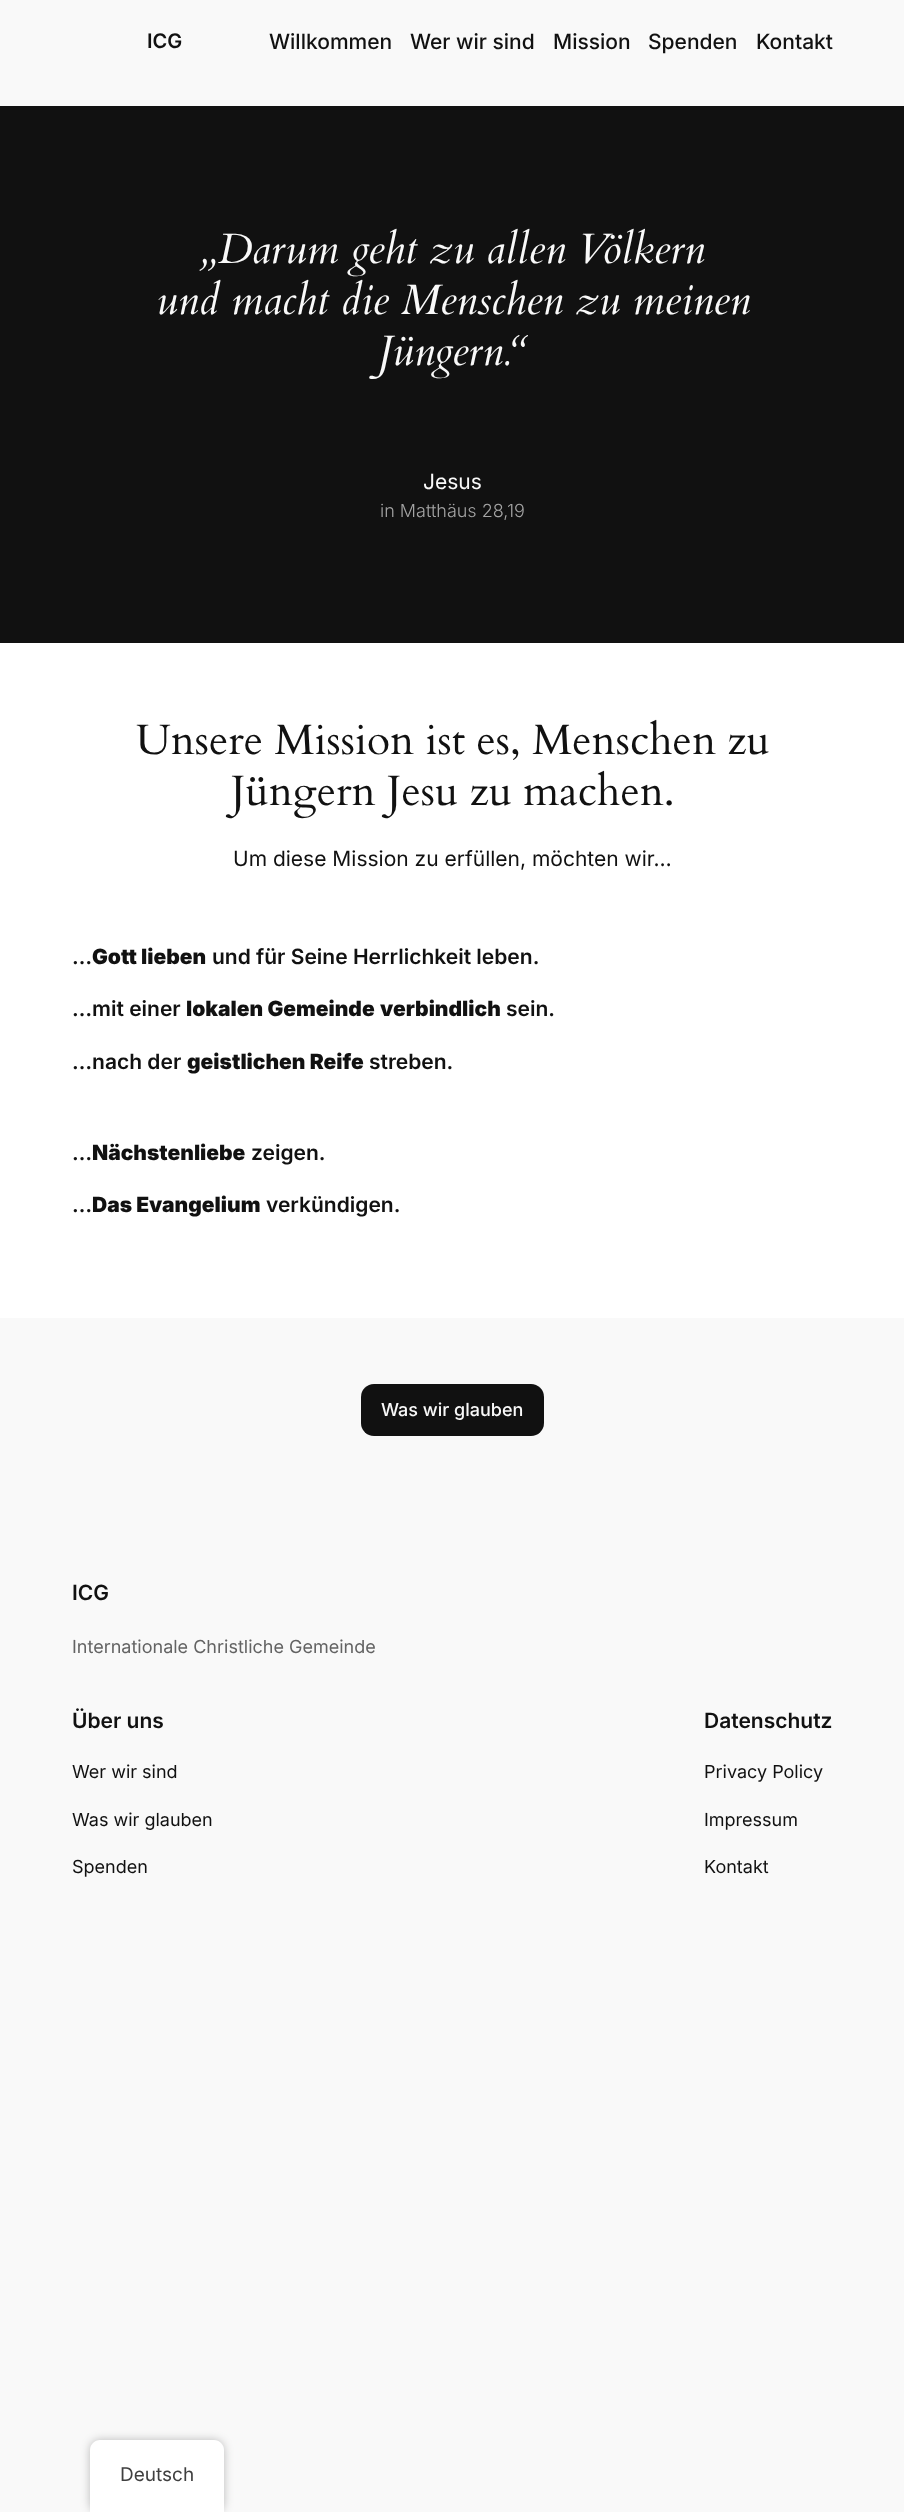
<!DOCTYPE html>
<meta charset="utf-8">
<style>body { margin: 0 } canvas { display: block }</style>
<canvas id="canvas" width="904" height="2512"></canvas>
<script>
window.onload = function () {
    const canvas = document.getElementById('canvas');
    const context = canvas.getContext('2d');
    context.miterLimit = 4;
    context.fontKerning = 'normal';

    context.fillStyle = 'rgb(249, 249, 249)';
    context.fillRect(0, 0, 904, 2512);
    context.fillStyle = 'rgb(17, 17, 17)';
    context.fillRect(0, 106, 904, 537);
    context.fillStyle = 'rgb(255, 255, 255)';
    context.fillRect(0, 643, 904, 675);
    context.fillStyle = 'rgb(17, 17, 17)';
    context.beginPath();
    context.roundRect(361, 1384, 183, 52, 13);
    context.fill();
    context.fillStyle = 'rgba(0, 0, 0, 0.25)';
    context.filter = 'blur(5px)';
    context.beginPath();
    context.roundRect(90, 2440, 134, 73, 10);
    context.fill();
    context.filter = 'none';
    context.fillStyle = 'rgb(255, 255, 255)';
    context.beginPath();
    context.moveTo(100, 2440);
    context.lineTo(214, 2440);
    context.bezierCurveTo(219.5, 2440, 224, 2444.5, 224, 2450);
    context.lineTo(224, 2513);
    context.lineTo(90, 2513);
    context.lineTo(90, 2450);
    context.bezierCurveTo(90, 2444.5, 94.5, 2440, 100, 2440);
    context.closePath();
    context.fill();
    context.font = '600 20px Inter';
    context.fillStyle = 'rgb(17, 17, 17)';
    context.fillText('ICG', 147, 48);
    context.font = '500 21px Inter';
    context.fillText('Willkommen', 269, 49);
    context.fillText('Wer wir sind', 410, 49);
    context.fillText('Mission', 553, 49);
    context.fillText('Spenden', 648, 49);
    context.fillText('Kontakt', 756, 49);
    context.font = 'italic 42.5px Cardo';
    context.fillStyle = 'rgb(249, 249, 249)';
    context.fillText('„Darum geht zu allen Völkern', 200, 263);
    context.fillText('und macht die Menschen zu meinen', 156, 314);
    context.fillText('Jüngern.“', 378, 365);
    context.font = '21px Inter';
    context.fillText('Jesus', 423, 489);
    context.font = '300 18px Inter';
    context.fillStyle = 'rgb(164, 164, 164)';
    context.fillText('in Matthäus 28,19', 380, 517);
    context.font = '42.5px Cardo';
    context.fillStyle = 'rgb(17, 17, 17)';
    context.fillText('Unsere Mission ist es, Menschen zu', 136, 754);
    context.fillText('Jüngern Jesu zu machen.', 231, 805);
    context.font = '21px Inter';
    context.fillText('Um diese Mission zu erfüllen, möchten wir…', 233, 866);
    context.font = '600 21px Inter';
    context.fillText('…', 72, 964);
    context.font = '900 21px Inter';
    context.fillText('Gott lieben', 92, 964);
    context.font = '600 21px Inter';
    context.fillText('und für Seine Herrlichkeit leben.', 212, 964);
    context.fillText('…mit einer', 72, 1016);
    context.font = '900 21px Inter';
    context.fillText('lokalen Gemeinde', 186, 1016);
    context.fillText('verbindlich', 380, 1016);
    context.font = '600 21px Inter';
    context.fillText('sein.', 506, 1016);
    context.fillText('…nach der', 72, 1069);
    context.font = '900 21px Inter';
    context.fillText('geistlichen Reife', 187, 1069);
    context.font = '600 21px Inter';
    context.fillText('streben.', 369, 1069);
    context.fillText('…', 72, 1160);
    context.font = '900 21px Inter';
    context.fillText('Nächstenliebe', 92, 1160);
    context.font = '600 21px Inter';
    context.fillText('zeigen.', 251, 1160);
    context.fillText('…', 72, 1212);
    context.font = '900 21px Inter';
    context.fillText('Das Evangelium', 92, 1212);
    context.font = '600 21px Inter';
    context.fillText('verkündigen.', 266, 1212);
    context.font = '500 18px Inter';
    context.fillStyle = 'rgb(249, 249, 249)';
    context.fillText('Was wir glauben', 381, 1416);
    context.font = '600 21px Inter';
    context.fillStyle = 'rgb(17, 17, 17)';
    context.fillText('ICG', 72, 1600);
    context.font = '18px Inter';
    context.fillStyle = 'rgb(99, 99, 99)';
    context.fillText('Internationale Christliche Gemeinde', 72, 1653);
    context.font = '600 21px Inter';
    context.fillStyle = 'rgb(17, 17, 17)';
    context.fillText('Über uns', 72, 1728);
    context.font = '18px Inter';
    context.fillText('Wer wir sind', 72, 1778);
    context.fillText('Was wir glauben', 72, 1826);
    context.fillText('Spenden', 72, 1873);
    context.font = '600 21px Inter';
    context.fillText('Datenschutz', 704, 1728);
    context.font = '18px Inter';
    context.fillText('Privacy Policy', 704, 1778);
    context.fillText('Impressum', 704, 1826);
    context.fillText('Kontakt', 704, 1873);
    context.font = '19px Inter';
    context.fillStyle = 'rgb(64, 64, 64)';
    context.fillText('Deutsch', 120, 2481);
};
</script>
